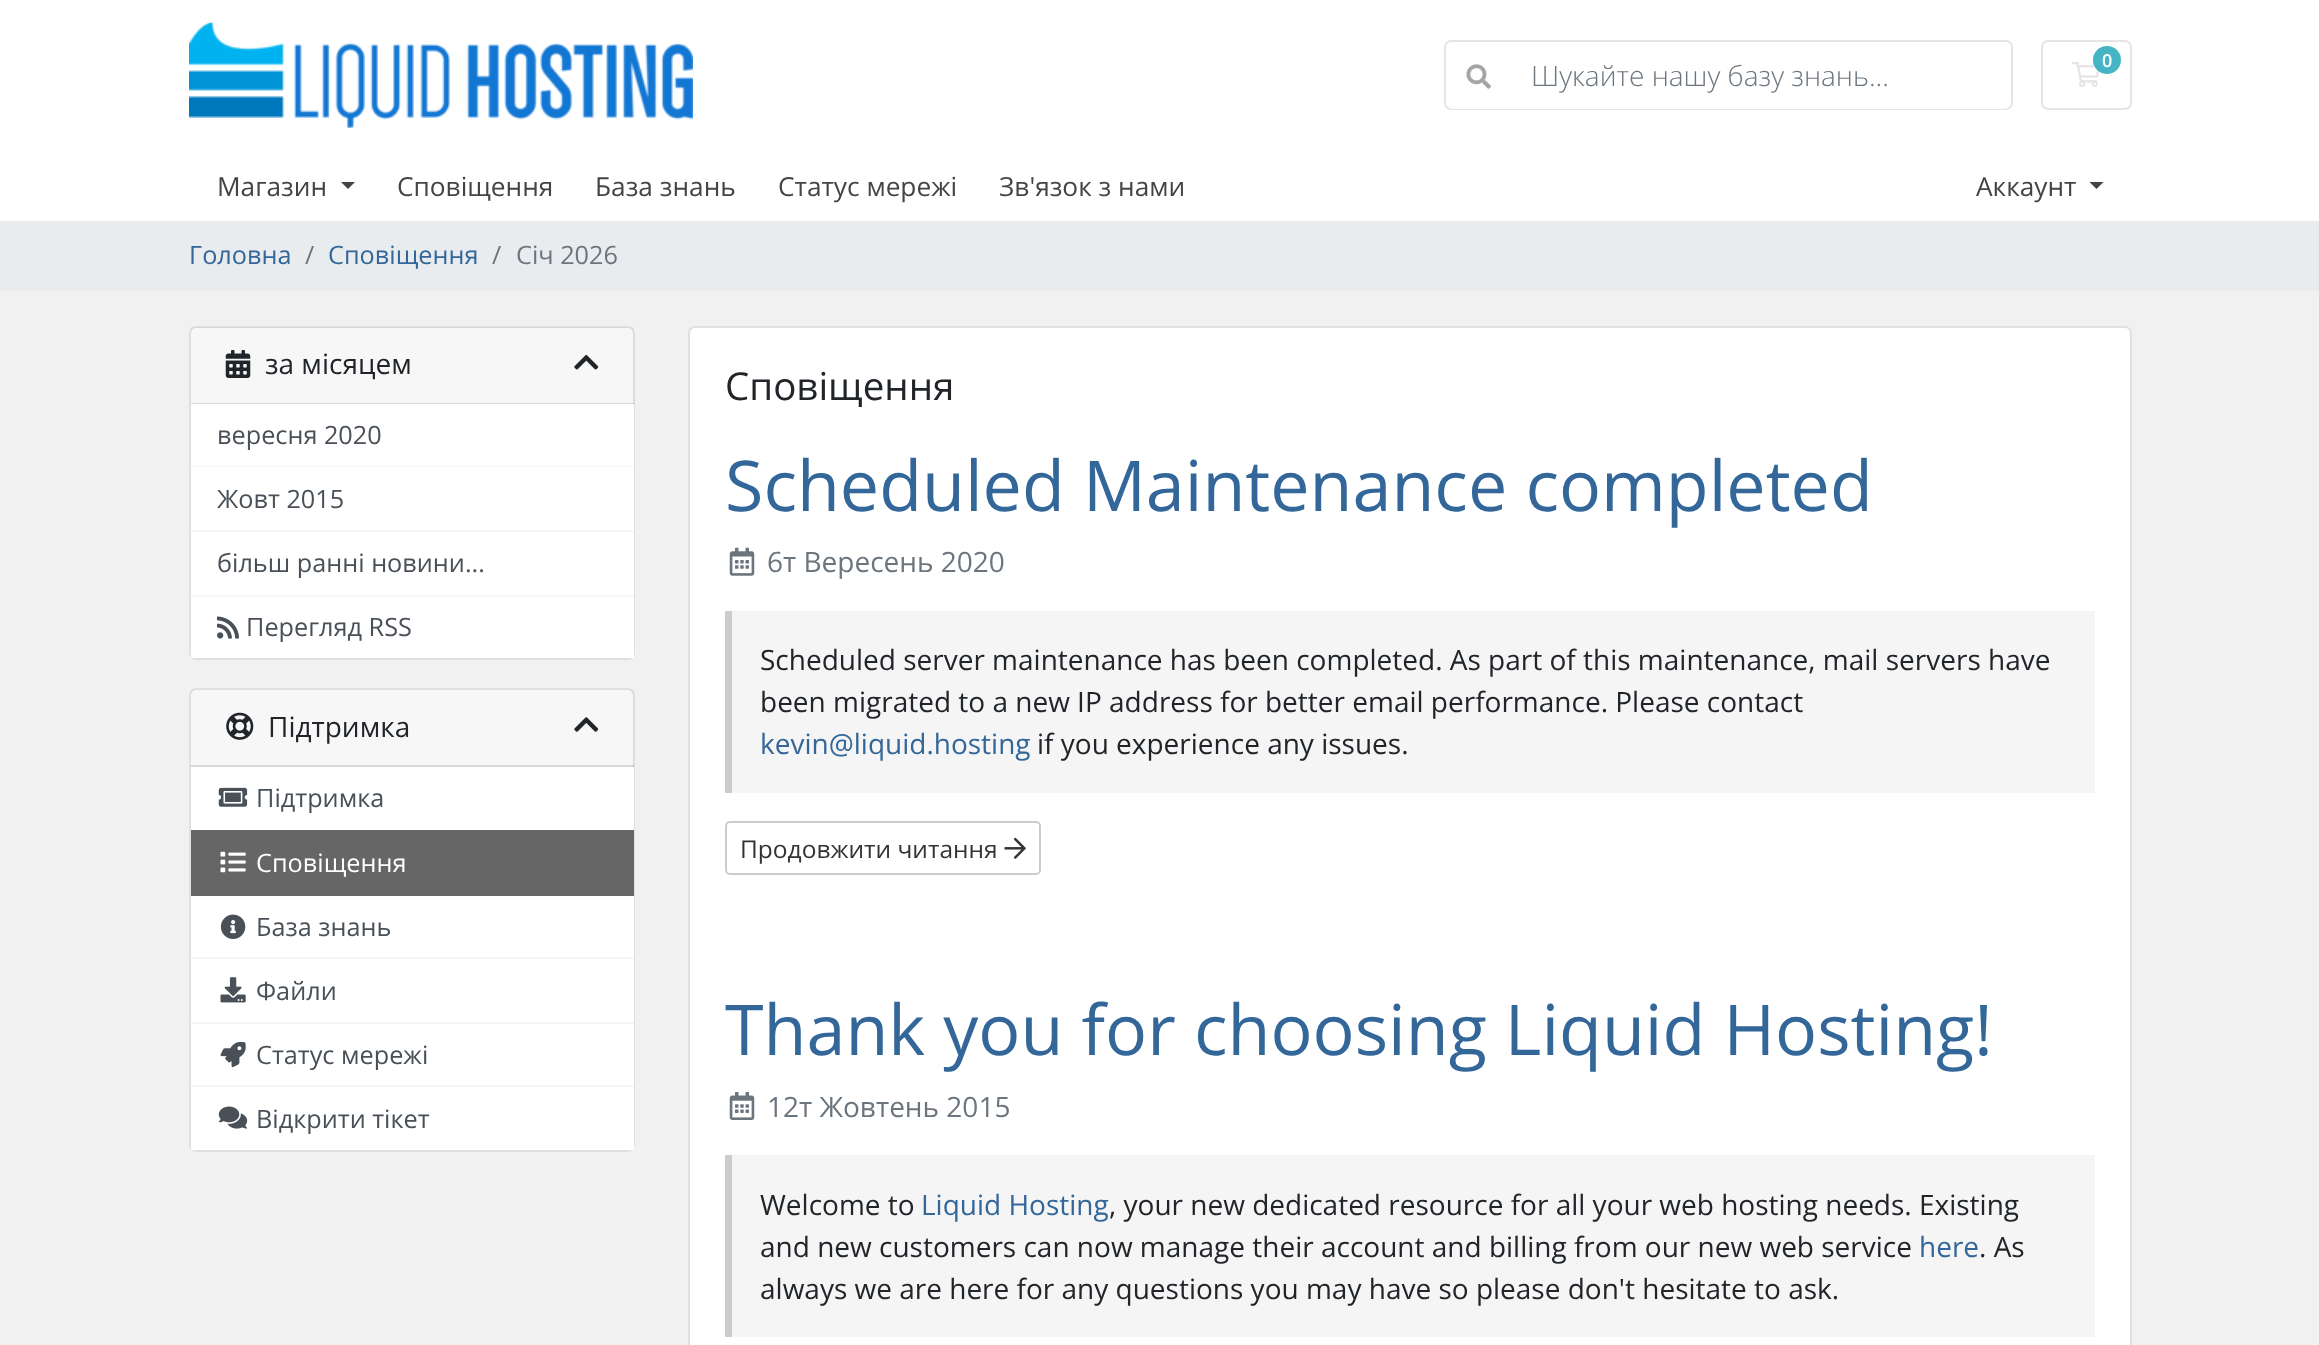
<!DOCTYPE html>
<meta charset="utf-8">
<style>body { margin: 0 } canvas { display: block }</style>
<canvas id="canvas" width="2319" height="1345"></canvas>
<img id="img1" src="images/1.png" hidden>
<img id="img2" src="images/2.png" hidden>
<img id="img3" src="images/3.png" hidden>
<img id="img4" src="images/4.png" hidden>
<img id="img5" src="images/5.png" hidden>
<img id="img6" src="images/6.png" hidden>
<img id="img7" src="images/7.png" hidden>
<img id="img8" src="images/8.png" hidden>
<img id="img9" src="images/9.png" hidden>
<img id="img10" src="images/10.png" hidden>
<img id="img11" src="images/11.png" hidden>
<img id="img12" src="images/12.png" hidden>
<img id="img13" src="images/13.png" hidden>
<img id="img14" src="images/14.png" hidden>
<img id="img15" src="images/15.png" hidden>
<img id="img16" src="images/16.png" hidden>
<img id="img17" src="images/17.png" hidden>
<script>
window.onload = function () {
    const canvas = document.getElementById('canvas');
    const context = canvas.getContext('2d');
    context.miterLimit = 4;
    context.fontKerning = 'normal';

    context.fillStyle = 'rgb(241, 241, 241)';
    context.fillRect(0, 0, 2319, 1345);
    context.fillStyle = 'rgb(255, 255, 255)';
    context.fillRect(0, 0, 2319, 221);
    context.drawImage(document.getElementById('img1'), 189, 22, 504, 106);
    context.beginPath();
    context.roundRect(2042, 41, 89, 68, 6);
    context.strokeStyle = 'rgb(229, 229, 229)';
    context.lineWidth = 2;
    context.stroke();
    context.drawImage(document.getElementById('img2'), 2072, 62, 29, 25);
    context.fillStyle = 'rgba(23, 162, 184, 0.8)';
    context.beginPath();
    context.arc(2107, 60, 14, 0, 2 * Math.PI);
    context.fill();
    context.beginPath();
    context.roundRect(1445, 41, 567, 68, 6);
    context.stroke();
    context.fillStyle = 'rgb(255, 255, 255)';
    context.beginPath();
    context.roundRect(1510, 42, 501, 67, [0, 7, 7, 0]);
    context.fill();
    context.beginPath();
    context.roundRect(1446, 42, 66, 67, [7, 0, 0, 7]);
    context.fill();
    context.drawImage(document.getElementById('img3'), 1466, 64, 25, 25);
    context.fillStyle = 'rgb(68, 68, 68)';
    context.beginPath();
    context.moveTo(341, 182);
    context.lineTo(355, 182);
    context.lineTo(348, 189);
    context.closePath();
    context.fill();
    context.beginPath();
    context.moveTo(2089.5, 182);
    context.lineTo(2103.5, 182);
    context.lineTo(2096.5, 189);
    context.closePath();
    context.fill();
    context.fillStyle = 'rgb(233, 236, 239)';
    context.fillRect(0, 221, 2319, 70);
    context.fillStyle = 'rgb(255, 255, 255)';
    context.beginPath();
    context.roundRect(189, 326, 446, 334, 7);
    context.fill();
    context.beginPath();
    context.roundRect(190, 327, 444, 332, 6);
    context.strokeStyle = 'rgba(0, 0, 0, 0.12)';
    context.stroke();
    context.fillStyle = 'rgba(0, 0, 0, 0.03)';
    context.fillRect(191, 327, 443, 77);
    context.fillStyle = 'rgba(0, 0, 0, 0.12)';
    context.fillRect(191, 403, 443, 1);
    context.drawImage(document.getElementById('img4'), 225, 350, 26, 28);
    context.drawImage(document.getElementById('img5'), 574, 355, 25, 15);
    context.fillStyle = 'rgb(255, 255, 255)';
    context.fillRect(633, 404, 1, 62);
    context.fillStyle = 'rgb(245, 245, 245)';
    context.fillRect(191, 466, 443, 1);
    context.fillStyle = 'rgb(255, 255, 255)';
    context.fillRect(633, 467, 1, 63);
    context.fillStyle = 'rgb(245, 245, 245)';
    context.fillRect(191, 530, 443, 2);
    context.fillStyle = 'rgb(255, 255, 255)';
    context.fillRect(633, 532, 1, 63);
    context.fillStyle = 'rgb(245, 245, 245)';
    context.fillRect(191, 595, 443, 2);
    context.fillStyle = 'rgb(255, 255, 255)';
    context.fillRect(191, 597, 443, 61);
    context.drawImage(document.getElementById('img6'), 217, 616, 22, 23);
    context.beginPath();
    context.roundRect(189, 688, 446, 464, 7);
    context.fill();
    context.beginPath();
    context.roundRect(190, 689, 444, 462, 6);
    context.stroke();
    context.fillStyle = 'rgba(0, 0, 0, 0.03)';
    context.fillRect(191, 690, 443, 77);
    context.fillStyle = 'rgba(0, 0, 0, 0.12)';
    context.fillRect(191, 765, 443, 2);
    context.drawImage(document.getElementById('img7'), 226, 712, 28, 28);
    context.drawImage(document.getElementById('img8'), 574, 717, 25, 15);
    context.fillStyle = 'rgb(255, 255, 255)';
    context.fillRect(633, 767, 1, 63);
    context.drawImage(document.getElementById('img9'), 218, 787, 30, 20);
    context.fillStyle = 'rgb(102, 102, 102)';
    context.fillRect(191, 830, 443, 66);
    context.drawImage(document.getElementById('img10'), 220, 851, 26, 22);
    context.fillStyle = 'rgb(255, 255, 255)';
    context.fillRect(633, 896, 1, 61);
    context.fillStyle = 'rgb(245, 245, 245)';
    context.fillRect(191, 957, 443, 2);
    context.drawImage(document.getElementById('img11'), 220, 914, 26, 25);
    context.fillStyle = 'rgb(255, 255, 255)';
    context.fillRect(633, 959, 1, 63);
    context.fillStyle = 'rgb(245, 245, 245)';
    context.fillRect(191, 1022, 443, 2);
    context.drawImage(document.getElementById('img12'), 220, 977, 26, 26);
    context.fillStyle = 'rgb(255, 255, 255)';
    context.fillRect(633, 1024, 1, 61);
    context.fillStyle = 'rgb(245, 245, 245)';
    context.fillRect(191, 1085, 443, 2);
    context.drawImage(document.getElementById('img13'), 220, 1041, 26, 27);
    context.fillStyle = 'rgb(255, 255, 255)';
    context.fillRect(191, 1087, 443, 63);
    context.drawImage(document.getElementById('img14'), 218, 1106, 30, 23);
    context.beginPath();
    context.roundRect(688, 326, 1444, 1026, 7);
    context.fill();
    context.beginPath();
    context.roundRect(689, 327, 1442, 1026, 6);
    context.stroke();
    context.drawImage(document.getElementById('img15'), 729, 547, 26, 29);
    context.fillStyle = 'rgb(245, 245, 245)';
    context.fillRect(732, 611, 1363, 182);
    context.fillStyle = 'rgb(204, 204, 204)';
    context.fillRect(725, 611, 7, 182);
    context.beginPath();
    context.roundRect(726, 822, 314, 52, 4);
    context.strokeStyle = 'rgb(204, 204, 204)';
    context.stroke();
    context.drawImage(document.getElementById('img16'), 1004, 837, 22, 22);
    context.drawImage(document.getElementById('img17'), 729, 1092, 26, 28);
    context.fillStyle = 'rgb(245, 245, 245)';
    context.fillRect(732, 1155, 1363, 182);
    context.fillStyle = 'rgb(204, 204, 204)';
    context.fillRect(725, 1155, 7, 182);
    context.font = '600 18px Open Sans';
    context.fillStyle = 'rgb(255, 255, 255)';
    context.fillText('0', 2102, 67);
    context.font = '300 28px Open Sans';
    context.fillStyle = 'rgb(108, 117, 125)';
    context.fillText('Шукайте нашу базу знань...', 1531, 86);
    context.font = '26.25px Open Sans';
    context.fillStyle = 'rgb(68, 68, 68)';
    context.fillText('Магазин', 217, 196);
    context.fillText('Сповіщення', 397, 196);
    context.fillText('База знань', 595, 196);
    context.fillText('Статус мережі', 778, 196);
    context.fillText('Зв\'язок з нами', 999, 196);
    context.fillText('Аккаунт', 1976, 196);
    context.font = '25.25px Open Sans';
    context.fillStyle = 'rgb(51, 102, 153)';
    context.fillText('Головна', 189, 264);
    context.fillStyle = 'rgb(108, 117, 125)';
    context.fillText('/', 305, 264);
    context.fillStyle = 'rgb(51, 102, 153)';
    context.fillText('Сповіщення', 328, 264);
    context.fillStyle = 'rgb(108, 117, 125)';
    context.fillText('/', 492, 264);
    context.fillText('Січ 2026', 516, 264);
    context.font = '28px Open Sans';
    context.fillStyle = 'rgb(33, 37, 41)';
    context.fillText('за місяцем', 265, 374);
    context.font = '25.25px Open Sans';
    context.fillStyle = 'rgb(73, 80, 87)';
    context.fillText('вересня 2020', 217, 444);
    context.fillText('Жовт 2015', 217, 508);
    context.fillText('більш ранні новини...', 217, 572);
    context.fillText('Перегляд RSS', 246, 636);
    context.font = '28px Open Sans';
    context.fillStyle = 'rgb(33, 37, 41)';
    context.fillText('Підтримка', 268, 737);
    context.font = '25.25px Open Sans';
    context.fillStyle = 'rgb(73, 80, 87)';
    context.fillText('Підтримка', 256, 807);
    context.fillStyle = 'rgb(255, 255, 255)';
    context.fillText('Сповіщення', 256, 872);
    context.fillStyle = 'rgb(73, 80, 87)';
    context.fillText('База знань', 256, 936);
    context.fillText('Файли', 256, 1000);
    context.fillText('Статус мережі', 256, 1064);
    context.fillText('Відкрити тікет', 256, 1128);
    context.font = '38.5px Open Sans';
    context.fillStyle = 'rgb(33, 37, 41)';
    context.fillText('Сповіщення', 725, 400);
    context.font = '70px Open Sans';
    context.fillStyle = 'rgb(51, 102, 153)';
    context.fillText('Scheduled Maintenance completed', 725, 511);
    context.font = '28px Open Sans';
    context.fillStyle = 'rgb(108, 117, 125)';
    context.fillText('6т Вересень 2020', 767, 572);
    context.fillStyle = 'rgb(33, 37, 41)';
    context.fillText('Scheduled server maintenance has been completed. As part of this maintenance, mail servers have', 760, 670);
    context.fillText('been migrated to a new IP address for better email performance. Please contact', 760, 712);
    context.fillStyle = 'rgb(51, 102, 153)';
    context.fillText('kevin@liquid.hosting', 760, 754);
    context.fillStyle = 'rgb(33, 37, 41)';
    context.fillText('if you experience any issues.', 1037, 754);
    context.font = '24.5px Open Sans';
    context.fillStyle = 'rgb(51, 51, 51)';
    context.fillText('Продовжити читання', 740, 858);
    context.font = '70px Open Sans';
    context.fillStyle = 'rgb(51, 102, 153)';
    context.fillText('Thank you for choosing Liquid Hosting!', 725, 1055);
    context.font = '28px Open Sans';
    context.fillStyle = 'rgb(108, 117, 125)';
    context.fillText('12т Жовтень 2015', 767, 1117);
    context.fillStyle = 'rgb(33, 37, 41)';
    context.fillText('Welcome to', 760, 1215);
    context.fillStyle = 'rgb(51, 102, 153)';
    context.fillText('Liquid Hosting', 921, 1215);
    context.fillStyle = 'rgb(33, 37, 41)';
    context.fillText(', your new dedicated resource for all your web hosting needs. Existing', 1109, 1215);
    context.fillText('and new customers can now manage their account and billing from our new web service', 760, 1257);
    context.fillStyle = 'rgb(51, 102, 153)';
    context.fillText('here', 1919, 1257);
    context.fillStyle = 'rgb(33, 37, 41)';
    context.fillText('. As', 1979, 1257);
    context.fillText('always we are here for any questions you may have so please don\'t hesitate to ask.', 760, 1299);
};
</script>
